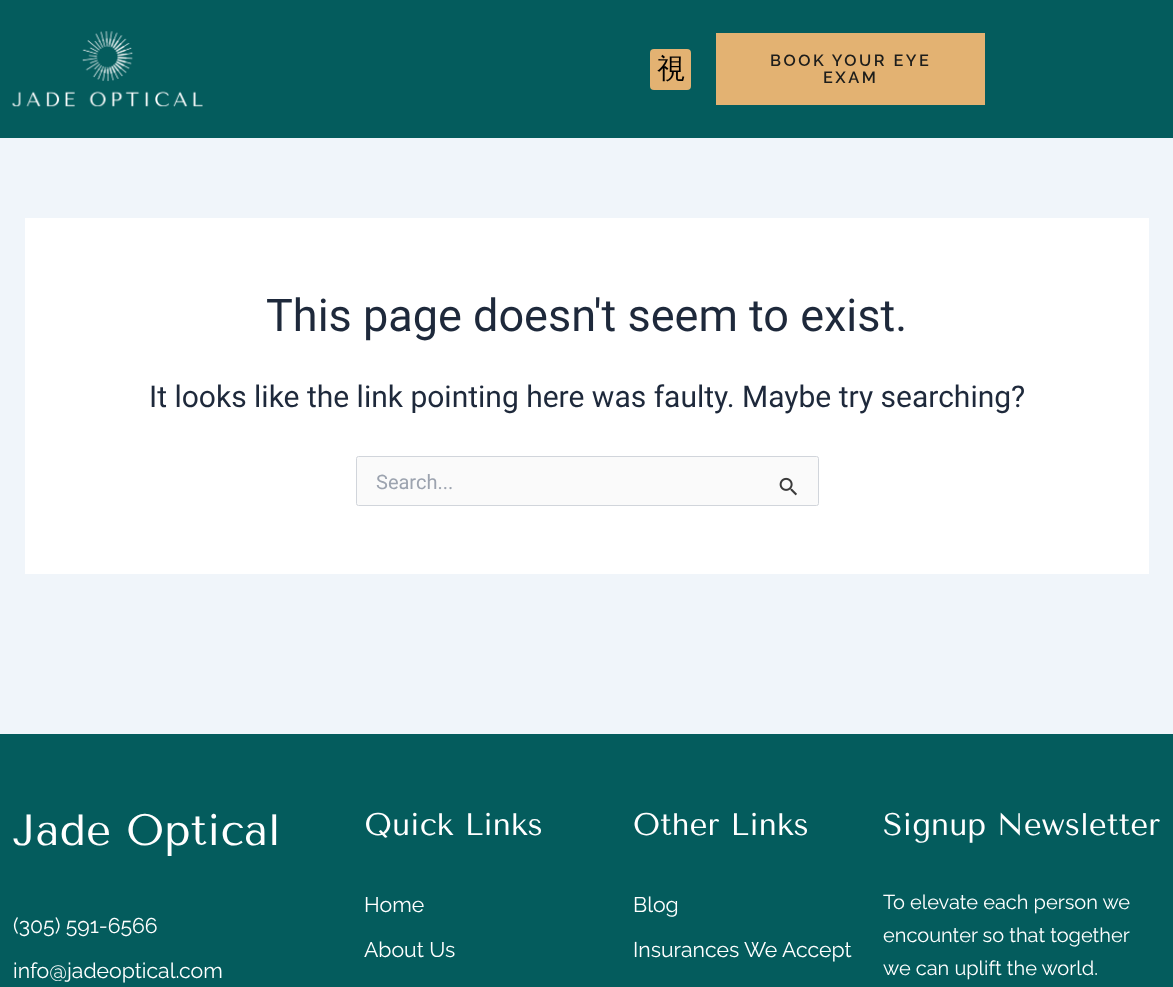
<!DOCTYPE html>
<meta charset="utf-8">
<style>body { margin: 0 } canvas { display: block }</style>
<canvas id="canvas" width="1173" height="987"></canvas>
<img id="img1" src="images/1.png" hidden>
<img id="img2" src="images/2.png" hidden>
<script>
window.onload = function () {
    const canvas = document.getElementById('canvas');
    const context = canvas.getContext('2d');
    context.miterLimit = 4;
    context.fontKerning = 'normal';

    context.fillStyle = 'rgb(240, 245, 250)';
    context.fillRect(0, 0, 1173, 987);
    context.fillStyle = 'rgb(4, 92, 93)';
    context.fillRect(0, 0, 1173, 138);
    context.drawImage(document.getElementById('img1'), 12, 31, 191, 76);
    context.fillStyle = 'rgb(227, 178, 114)';
    context.beginPath();
    context.roundRect(650, 49, 41, 41, 4);
    context.fill();
    context.fillRect(716, 33, 269, 72);
    context.fillStyle = 'rgb(255, 255, 255)';
    context.fillRect(25, 218, 1124, 356);
    context.fillStyle = 'rgb(250, 250, 250)';
    context.beginPath();
    context.roundRect(356.5, 456.5, 462, 49, 2);
    context.fill();
    context.strokeStyle = 'rgb(209, 213, 219)';
    context.stroke();
    context.drawImage(document.getElementById('img2'), 779, 477, 18, 19);
    context.fillStyle = 'rgb(4, 92, 93)';
    context.fillRect(0, 734, 1173, 253);
    context.font = '500 28px WenQuanYi Zen Hei';
    context.fillStyle = 'rgb(0, 0, 0)';
    context.fillText('視', 657, 78);
    context.letterSpacing = '2.5px';
    context.font = '600 16.25px Raleway';
    context.fillStyle = 'rgb(29, 29, 27)';
    context.fillText('BOOK YOUR EYE', 770, 66);
    context.fillText('EXAM', 823, 83);
    context.letterSpacing = '0px';
    context.font = '45px Roboto';
    context.fillStyle = 'rgb(30, 41, 59)';
    context.fillText('This page doesn\'t seem to exist.', 266, 331);
    context.font = '30px Roboto';
    context.fillText('It looks like the link pointing here was faulty. Maybe try searching?', 149, 407);
    context.font = '20px Roboto';
    context.fillStyle = 'rgb(156, 163, 175)';
    context.fillText('Search...', 376, 489);
    context.font = '43.75px Tenor Sans';
    context.fillStyle = 'rgb(255, 255, 255)';
    context.fillText('Jade Optical', 13, 845);
    context.font = '21.25px Raleway';
    context.fillText('(305) 591-6566', 13, 933);
    context.fillText('info@jadeoptical.com', 13, 978);
    context.font = '31.25px Tenor Sans';
    context.fillText('Quick Links', 364, 835);
    context.font = '21.25px Raleway';
    context.fillText('Home', 364, 912);
    context.fillText('About Us', 364, 957);
    context.font = '31.25px Tenor Sans';
    context.fillText('Other Links', 633, 835);
    context.font = '21.25px Raleway';
    context.fillText('Blog', 633, 912);
    context.fillText('Insurances We Accept', 633, 957);
    context.font = '31.25px Tenor Sans';
    context.fillText('Signup Newsletter', 883, 835);
    context.font = '20px Raleway';
    context.fillText('To elevate each person we', 883, 909);
    context.fillText('encounter so that together', 883, 942);
    context.fillText('we can uplift the world.', 883, 975);
};
</script>
